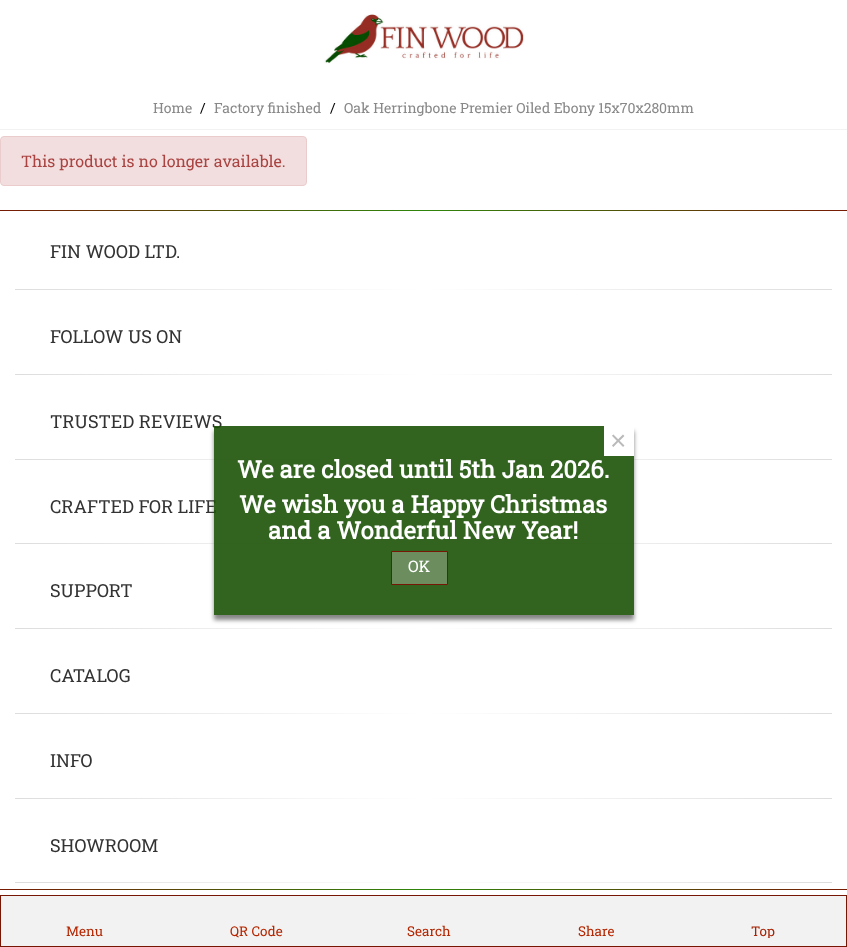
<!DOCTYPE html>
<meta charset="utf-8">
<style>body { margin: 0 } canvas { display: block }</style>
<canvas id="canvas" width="847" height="947"></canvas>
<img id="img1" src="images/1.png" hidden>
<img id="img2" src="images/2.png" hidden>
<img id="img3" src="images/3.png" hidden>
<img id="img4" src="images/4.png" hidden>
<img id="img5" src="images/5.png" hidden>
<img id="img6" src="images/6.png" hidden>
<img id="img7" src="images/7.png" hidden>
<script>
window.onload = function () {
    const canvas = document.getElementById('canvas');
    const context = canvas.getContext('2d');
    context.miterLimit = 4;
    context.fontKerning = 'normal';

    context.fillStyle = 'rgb(255, 255, 255)';
    context.fillRect(0, 0, 847, 947);
    context.drawImage(document.getElementById('img1'), 324, 14, 200, 50);
    context.fillStyle = 'rgb(242, 242, 242)';
    context.fillRect(0, 129, 847, 1);
    context.fillStyle = 'rgb(242, 222, 222)';
    context.beginPath();
    context.roundRect(0.5, 136.5, 306, 49, 3.5);
    context.fill();
    context.strokeStyle = 'rgb(235, 204, 204)';
    context.stroke();
    context.drawImage(document.getElementById('img2'), 0, 210, 847, 1);
    context.drawImage(document.getElementById('img3'), 15, 289, 817, 1);
    context.drawImage(document.getElementById('img4'), 15, 374, 817, 1);
    context.drawImage(document.getElementById('img5'), 15, 459, 817, 1);
    context.drawImage(document.getElementById('img3'), 15, 543, 817, 1);
    context.drawImage(document.getElementById('img4'), 15, 628, 817, 1);
    context.drawImage(document.getElementById('img5'), 15, 713, 817, 1);
    context.drawImage(document.getElementById('img6'), 15, 798, 817, 1);
    context.drawImage(document.getElementById('img4'), 15, 882, 817, 1);
    context.drawImage(document.getElementById('img7'), 0, 889, 847, 1);
    context.strokeStyle = 'rgb(120, 22, 6)';
    context.strokeRect(0.5, 895.5, 846, 51);
    context.fillStyle = 'rgb(242, 242, 242)';
    context.fillRect(1, 896, 845, 50);
    context.save();
    context.beginPath();
    context.moveTo(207, 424);
    context.lineTo(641, 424);
    context.lineTo(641, 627);
    context.lineTo(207, 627);
    context.closePath();
    context.moveTo(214, 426);
    context.lineTo(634, 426);
    context.lineTo(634, 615);
    context.lineTo(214, 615);
    context.closePath();
    context.clip('evenodd');
    context.fillStyle = 'rgba(102, 102, 102, 0.8)';
    context.filter = 'blur(2px)';
    context.beginPath();
    context.rect(214, 431, 420, 189);
    context.fill();
    context.filter = 'none';
    context.restore();
    context.font = '14px Roboto Slab';
    context.fillStyle = 'rgb(136, 136, 136)';
    context.fillText('Home', 153, 113);
    context.fillStyle = 'rgb(0, 0, 0)';
    context.fillText('/', 200, 113);
    context.fillStyle = 'rgb(136, 136, 136)';
    context.fillText('Factory finished', 214, 113);
    context.fillStyle = 'rgb(0, 0, 0)';
    context.fillText('/', 330, 113);
    context.fillStyle = 'rgb(136, 136, 136)';
    context.fillText('Oak Herringbone Premier Oiled Ebony 15x70x280mm', 344, 113);
    context.font = '16px Roboto Slab';
    context.fillStyle = 'rgb(169, 68, 66)';
    context.fillText('This product is no longer available.', 21, 167);
    context.font = '18px Roboto Slab';
    context.fillStyle = 'rgb(51, 51, 51)';
    context.fillText('FIN WOOD LTD.', 50, 258);
    context.fillText('FOLLOW US ON', 50, 343);
    context.fillText('TRUSTED REVIEWS', 50, 428);
    context.fillText('CRAFTED FOR LIFE', 50, 513);
    context.fillText('SUPPORT', 50, 597);
    context.fillText('CATALOG', 50, 682);
    context.fillText('INFO', 50, 767);
    context.fillText('SHOWROOM', 50, 852);
    context.font = '13.5px Roboto Slab';
    context.fillStyle = 'rgb(180, 38, 0)';
    context.fillText('Menu', 66, 936);
    context.fillText('QR Code', 230, 936);
    context.fillText('Search', 407, 936);
    context.fillText('Share', 578, 936);
    context.save();
    context.beginPath();
    context.rect(679, 924, 167, 14);
    context.clip();
    context.fillStyle = 'rgb(163, 35, 6)';
    context.fillText('Top', 751, 936);
    context.restore();
    context.fillStyle = 'rgba(28, 82, 7, 0.9)';
    context.fillRect(214, 426, 420, 189);
    context.fillStyle = 'rgb(255, 255, 255)';
    context.fillRect(604, 426, 30, 30);
    context.font = '28px Liberation Sans';
    context.fillStyle = 'rgb(186, 186, 186)';
    context.fillText('×', 610, 450);
    context.font = 'bold 24px Roboto Slab';
    context.fillStyle = 'rgb(255, 255, 255)';
    context.fillText('We are closed until 5th Jan 2026.', 237, 478);
    context.fillText('We wish you a Happy Christmas', 239, 513);
    context.fillText('and a Wonderful New Year!', 268, 539);
    context.fillStyle = 'rgb(108, 142, 95)';
    context.beginPath();
    context.rect(391.5, 551.5, 56, 33);
    context.fill();
    context.stroke();
    context.font = '16px Roboto Slab';
    context.fillStyle = 'rgb(255, 255, 255)';
    context.fillText('OK', 408, 572);
};
</script>
